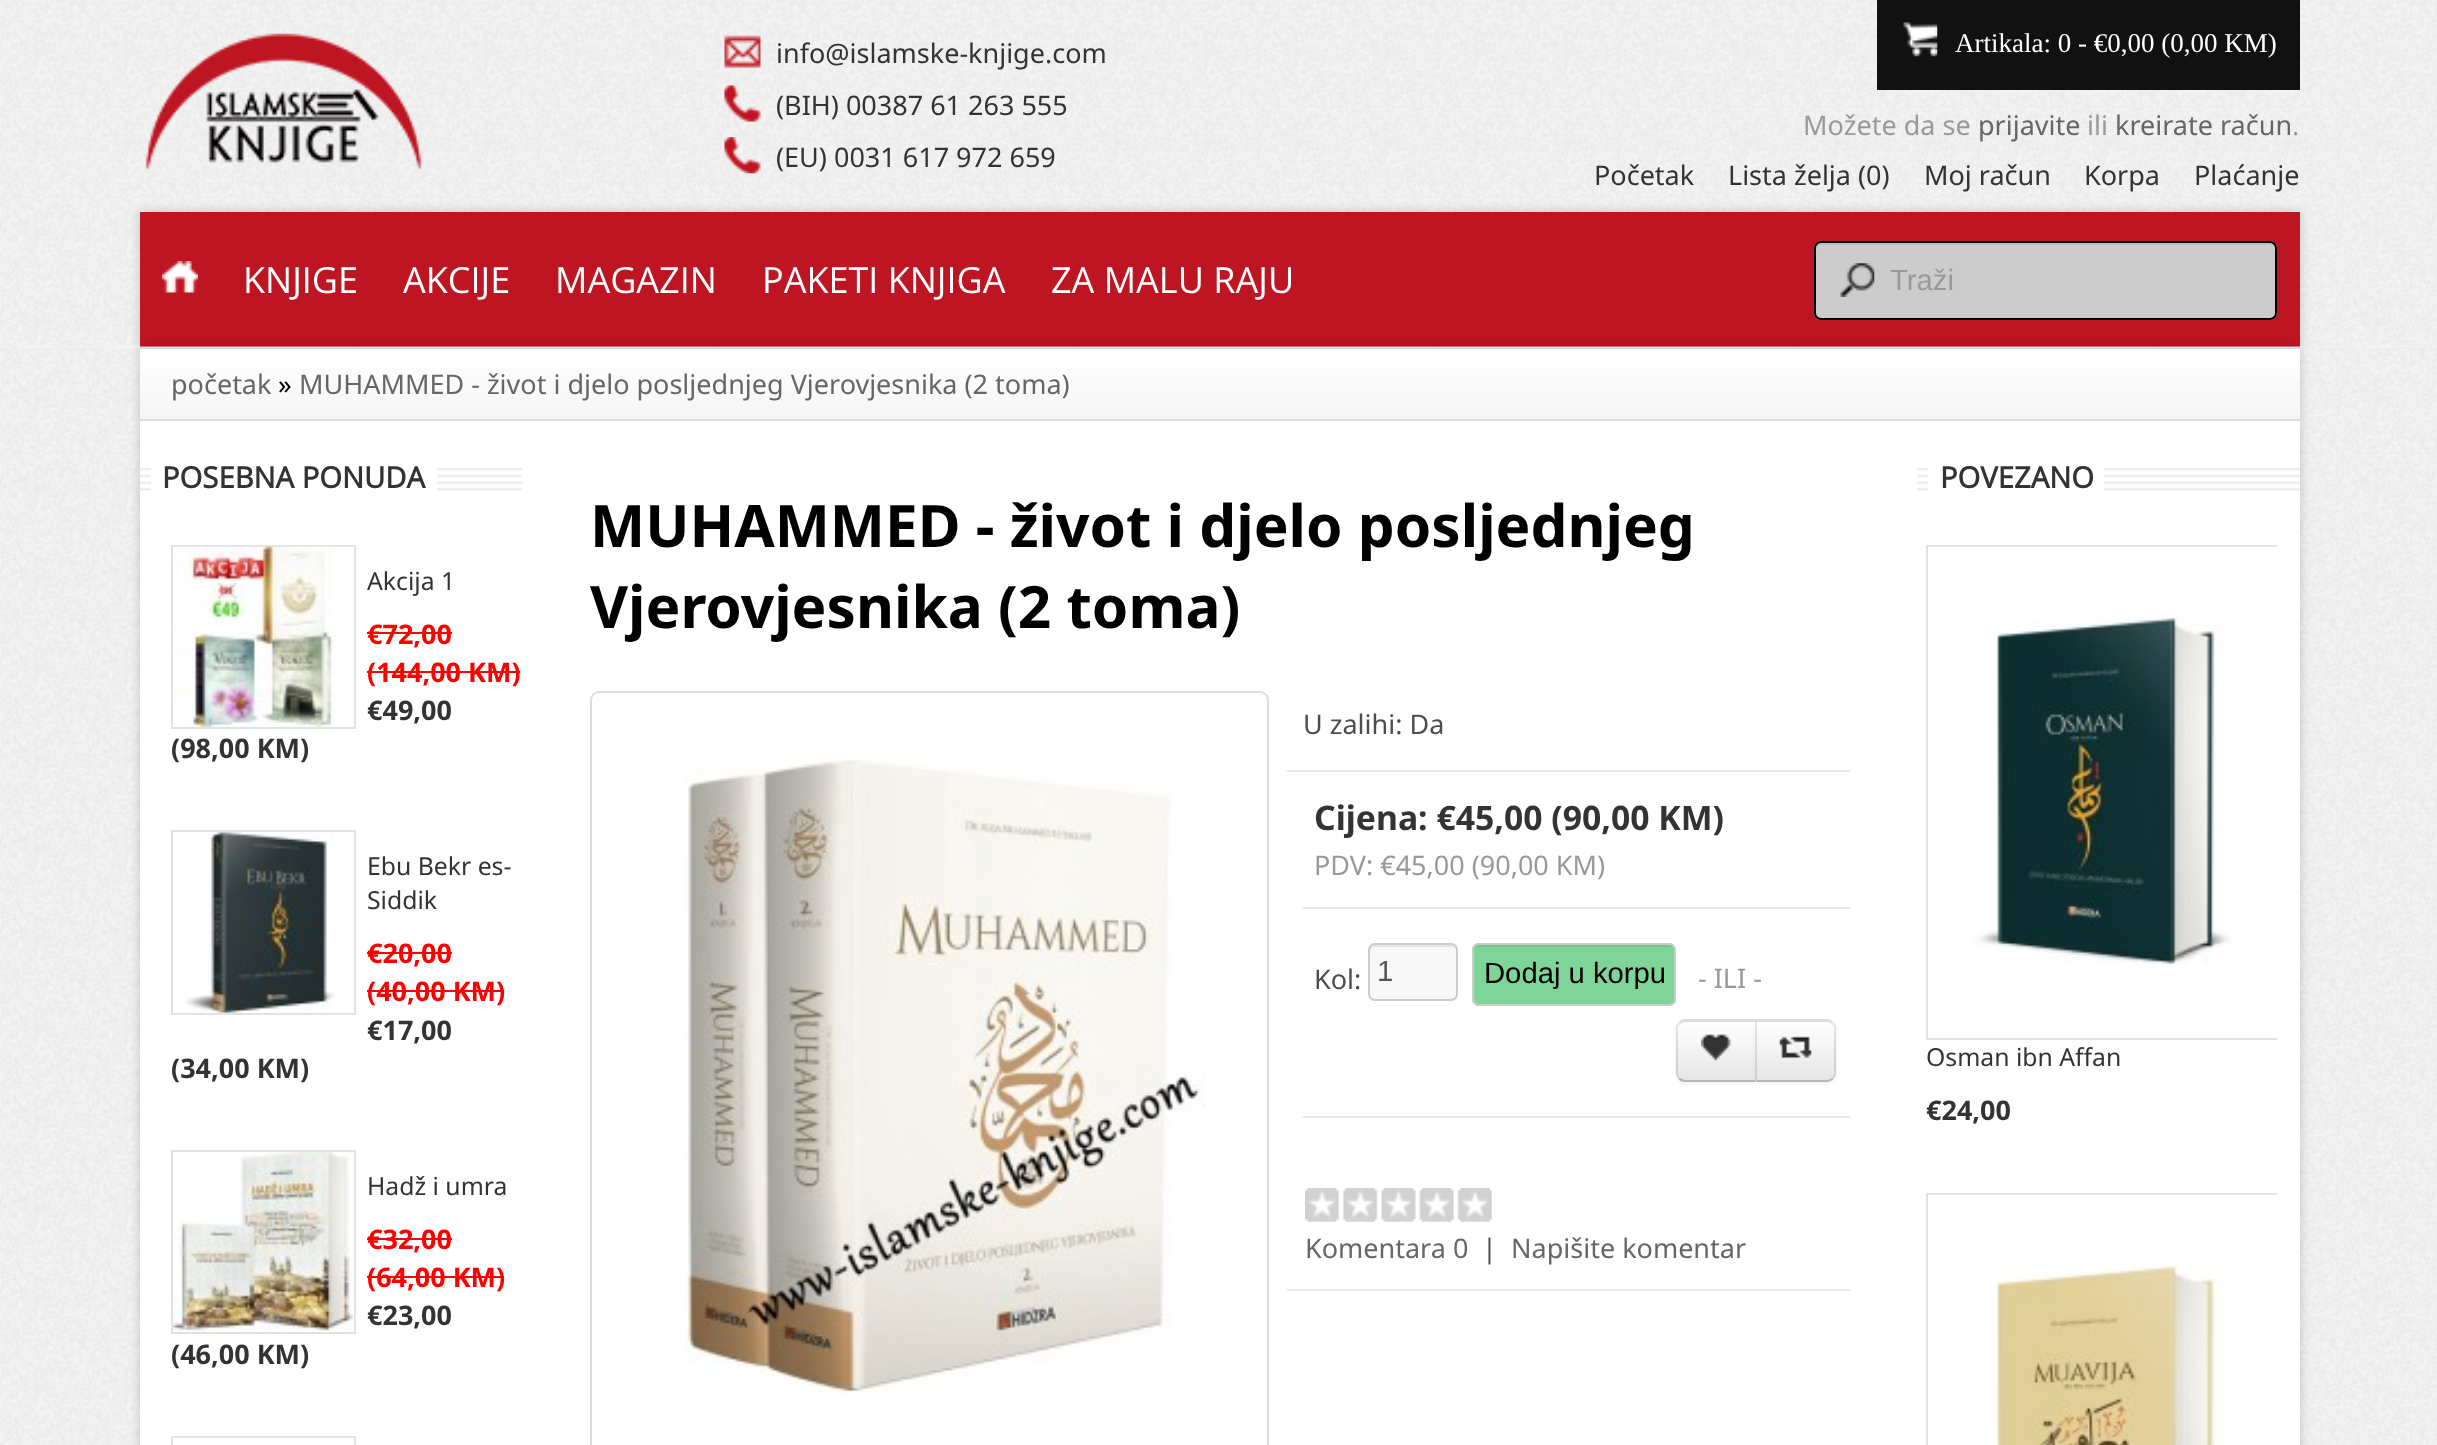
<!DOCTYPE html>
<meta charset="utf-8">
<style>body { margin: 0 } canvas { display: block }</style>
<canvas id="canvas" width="2437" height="1445"></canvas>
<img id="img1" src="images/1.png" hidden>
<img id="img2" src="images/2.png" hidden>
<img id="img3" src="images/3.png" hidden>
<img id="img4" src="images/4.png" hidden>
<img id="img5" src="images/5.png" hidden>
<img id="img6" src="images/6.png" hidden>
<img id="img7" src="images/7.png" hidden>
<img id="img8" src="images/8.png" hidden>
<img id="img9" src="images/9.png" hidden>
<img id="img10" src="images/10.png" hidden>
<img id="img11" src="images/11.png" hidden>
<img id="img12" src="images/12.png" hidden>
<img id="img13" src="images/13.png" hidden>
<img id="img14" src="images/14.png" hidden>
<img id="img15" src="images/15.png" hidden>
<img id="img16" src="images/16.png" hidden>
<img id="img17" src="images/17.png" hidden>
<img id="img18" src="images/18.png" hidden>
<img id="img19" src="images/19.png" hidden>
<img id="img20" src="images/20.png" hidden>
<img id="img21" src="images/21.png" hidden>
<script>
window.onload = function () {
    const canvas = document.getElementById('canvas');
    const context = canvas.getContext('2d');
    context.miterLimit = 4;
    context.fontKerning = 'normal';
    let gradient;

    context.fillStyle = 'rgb(255, 255, 255)';
    context.fillRect(0, 0, 2437, 1445);
    context.drawImage(document.getElementById('img1'), 0, 0, 2437, 347);
    context.fillStyle = 'rgba(0, 0, 0, 0.2)';
    context.filter = 'blur(5.5px)';
    context.beginPath();
    context.rect(140, 212, 2160, 135);
    context.fill();
    context.filter = 'none';
    context.fillStyle = 'rgb(190, 21, 34)';
    context.fillRect(140, 212, 2160, 135);
    context.drawImage(document.getElementById('img2'), 162, 261, 36, 32);
    context.drawImage(document.getElementById('img3'), 145, 33, 277, 136);
    context.drawImage(document.getElementById('img4'), 724, 35, 37, 34);
    context.drawImage(document.getElementById('img5'), 724, 85, 37, 37);
    context.drawImage(document.getElementById('img6'), 724, 137, 37, 37);
    context.fillStyle = 'rgb(17, 17, 17)';
    context.fillRect(1877, 0, 423, 90);
    context.drawImage(document.getElementById('img7'), 1903, 22, 35, 35);
    context.fillStyle = 'rgb(204, 204, 204)';
    context.beginPath();
    context.roundRect(1814, 241, 463, 79, 7);
    context.fill();
    context.fillStyle = 'rgb(189, 189, 189)';
    context.beginPath();
    context.moveTo(1820, 245);
    context.lineTo(2270, 245);
    context.bezierCurveTo(2273, 245, 2275, 247, 2275, 250);
    context.bezierCurveTo(2275, 247, 2274, 243, 2270, 243);
    context.lineTo(1821, 243);
    context.bezierCurveTo(1817, 243, 1816, 247, 1816, 250);
    context.bezierCurveTo(1816, 247, 1818, 245, 1820, 245);
    context.closePath();
    context.fill();
    context.beginPath();
    context.roundRect(1815, 242, 461, 77, 6);
    context.strokeStyle = 'rgb(0, 0, 0)';
    context.lineWidth = 2;
    context.stroke();
    context.drawImage(document.getElementById('img8'), 1840, 263, 35, 34);
    context.drawImage(document.getElementById('img9'), 0, 346, 2437, 1099);
    context.fillStyle = 'rgba(0, 0, 0, 0.2)';
    context.filter = 'blur(5.5px)';
    context.beginPath();
    context.rect(140, 347, 2160, 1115);
    context.fill();
    context.filter = 'none';
    context.fillStyle = 'rgb(255, 255, 255)';
    context.fillRect(140, 421, 2160, 1024);
    gradient = context.createLinearGradient(1220, 349, 1220, 419);
    gradient.addColorStop(0, 'rgb(255, 255, 255)');
    gradient.addColorStop(1, 'rgb(245, 245, 245)');
    context.fillStyle = gradient;
    context.fillRect(140, 349, 2160, 70);
    context.fillStyle = 'rgb(221, 221, 221)';
    context.fillRect(140, 347, 2160, 2);
    context.fillRect(140, 419, 2160, 2);
    context.drawImage(document.getElementById('img10'), 139, 468, 383, 23);
    context.fillStyle = 'rgb(255, 255, 255)';
    context.fillRect(151, 468, 286, 23);
    context.strokeStyle = 'rgb(226, 226, 226)';
    context.strokeRect(172, 546, 183, 182);
    context.drawImage(document.getElementById('img11'), 173, 546, 180, 181);
    context.fillStyle = 'rgb(255, 0, 0)';
    context.fillRect(367, 632, 85, 2);
    context.fillRect(367, 671, 153, 2);
    context.strokeRect(172, 831, 183, 183);
    context.drawImage(document.getElementById('img12'), 185, 832, 150, 181);
    context.fillRect(367, 952, 85, 2);
    context.fillRect(367, 990, 137, 2);
    context.strokeRect(172, 1151, 183, 182);
    context.drawImage(document.getElementById('img13'), 173, 1152, 181, 180);
    context.fillRect(367, 1238, 85, 2);
    context.fillRect(367, 1276, 137, 2);
    context.strokeRect(172, 1437, 183, 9);
    context.drawImage(document.getElementById('img14'), 173, 1437, 180, 1);
    context.beginPath();
    context.roundRect(591, 692, 677, 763, 8);
    context.strokeStyle = 'rgb(221, 221, 221)';
    context.stroke();
    context.drawImage(document.getElementById('img15'), 685, 758, 521, 641);
    context.fillStyle = 'rgb(231, 231, 231)';
    context.fillRect(1287, 770, 563, 2);
    context.fillRect(1303, 907, 547, 2);
    context.fillRect(1303, 1116, 547, 2);
    context.fillStyle = 'rgb(248, 248, 248)';
    context.beginPath();
    context.roundRect(1368, 943, 90, 58, 7);
    context.fill();
    context.fillStyle = 'rgb(229, 229, 229)';
    context.beginPath();
    context.moveTo(1375, 947);
    context.lineTo(1451, 947);
    context.bezierCurveTo(1454, 947, 1456, 949, 1456, 952);
    context.bezierCurveTo(1456, 942, 1447, 945, 1438, 945);
    context.lineTo(1388, 945);
    context.bezierCurveTo(1379, 945, 1370, 942, 1370, 952);
    context.bezierCurveTo(1370, 949, 1372, 947, 1375, 947);
    context.closePath();
    context.fill();
    context.beginPath();
    context.roundRect(1369, 944, 88, 56, 6);
    context.strokeStyle = 'rgb(204, 204, 204)';
    context.stroke();
    context.fillStyle = 'rgb(127, 212, 152)';
    context.beginPath();
    context.roundRect(1472, 943, 204, 63, 7);
    context.fill();
    context.fillStyle = 'rgb(117, 196, 141)';
    context.beginPath();
    context.moveTo(1478, 947);
    context.lineTo(1670, 947);
    context.bezierCurveTo(1672, 947, 1674, 949, 1674, 952);
    context.lineTo(1674, 950);
    context.bezierCurveTo(1674, 947, 1672, 945, 1669, 945);
    context.lineTo(1479, 945);
    context.bezierCurveTo(1476, 945, 1474, 947, 1474, 950);
    context.lineTo(1474, 952);
    context.bezierCurveTo(1474, 949, 1476, 947, 1478, 947);
    context.closePath();
    context.fill();
    context.beginPath();
    context.roundRect(1473, 944, 202, 61, 6);
    context.stroke();
    context.fillStyle = 'rgba(0, 0, 0, 0.05)';
    context.filter = 'blur(2px)';
    context.beginPath();
    context.roundRect(1676, 1022, 81, 63, 9);
    context.fill();
    context.filter = 'none';
    context.fillStyle = 'rgb(245, 245, 245)';
    context.beginPath();
    context.roundRect(1676, 1019, 81, 63, [9, 0, 0, 9]);
    context.fill();
    context.save();
    context.beginPath();
    context.roundRect(1676, 1019, 81, 63, [9, 0, 0, 9]);
    context.clip();
    gradient = context.createLinearGradient(1717, 1022, 1717, 1080);
    gradient.addColorStop(0, 'rgb(255, 255, 255)');
    gradient.addColorStop(1, 'rgb(230, 230, 230)');
    context.fillStyle = gradient;
    context.fillRect(1676, 1022, 79, 58);
    context.restore();
    context.fillStyle = 'rgba(0, 0, 0, 0.1)';
    context.beginPath();
    context.moveTo(1685, 1022);
    context.bezierCurveTo(1684, 1022, 1682, 1023, 1681, 1024);
    context.lineTo(1679, 1022);
    context.lineTo(1683, 1019);
    context.lineTo(1757, 1019);
    context.lineTo(1754, 1022);
    context.closePath();
    context.fill();
    context.beginPath();
    context.moveTo(1757, 1020);
    context.lineTo(1757, 1082);
    context.lineTo(1755, 1080);
    context.lineTo(1755, 1022);
    context.lineTo(1754, 1022);
    context.closePath();
    context.fill();
    context.fillStyle = 'rgba(0, 0, 0, 0.25)';
    context.beginPath();
    context.moveTo(1757, 1082);
    context.lineTo(1755, 1080);
    context.lineTo(1685, 1080);
    context.bezierCurveTo(1684, 1080, 1682, 1079, 1680, 1078);
    context.lineTo(1679, 1080);
    context.bezierCurveTo(1680, 1081, 1683, 1082, 1685, 1082);
    context.closePath();
    context.fill();
    context.fillStyle = 'rgba(0, 0, 0, 0.1)';
    context.beginPath();
    context.moveTo(1676, 1026);
    context.lineTo(1679, 1022);
    context.lineTo(1681, 1024);
    context.bezierCurveTo(1679, 1025, 1678, 1026, 1678, 1028);
    context.lineTo(1678, 1073);
    context.bezierCurveTo(1678, 1075, 1679, 1077, 1680, 1078);
    context.lineTo(1679, 1080);
    context.bezierCurveTo(1678, 1078, 1677, 1077, 1676, 1075);
    context.closePath();
    context.fill();
    context.drawImage(document.getElementById('img16'), 1701, 1034, 30, 27);
    context.fillStyle = 'rgba(0, 0, 0, 0.05)';
    context.filter = 'blur(2px)';
    context.beginPath();
    context.roundRect(1755, 1022, 81, 63, 9);
    context.fill();
    context.filter = 'none';
    context.fillStyle = 'rgb(245, 245, 245)';
    context.beginPath();
    context.roundRect(1755, 1019, 81, 63, [0, 9, 9, 0]);
    context.fill();
    context.save();
    context.beginPath();
    context.roundRect(1755, 1019, 81, 63, [0, 9, 9, 0]);
    context.clip();
    gradient = context.createLinearGradient(1796, 1022, 1796, 1080);
    gradient.addColorStop(0, 'rgb(255, 255, 255)');
    gradient.addColorStop(1, 'rgb(230, 230, 230)');
    context.fillStyle = gradient;
    context.fillRect(1755, 1022, 81, 58);
    context.restore();
    context.fillStyle = 'rgba(0, 0, 0, 0.1)';
    context.beginPath();
    context.moveTo(1755, 1019);
    context.lineTo(1829, 1019);
    context.bezierCurveTo(1831, 1020, 1832, 1021, 1833, 1022);
    context.lineTo(1832, 1024);
    context.bezierCurveTo(1830, 1023, 1829, 1022, 1827, 1022);
    context.lineTo(1758, 1022);
    context.closePath();
    context.fill();
    context.beginPath();
    context.moveTo(1836, 1073);
    context.lineTo(1836, 1028);
    context.bezierCurveTo(1836, 1026, 1835, 1023, 1833, 1022);
    context.lineTo(1832, 1024);
    context.bezierCurveTo(1833, 1025, 1834, 1026, 1834, 1028);
    context.lineTo(1834, 1073);
    context.bezierCurveTo(1834, 1075, 1833, 1077, 1832, 1078);
    context.lineTo(1833, 1079);
    context.bezierCurveTo(1835, 1078, 1836, 1076, 1836, 1073);
    context.closePath();
    context.fill();
    context.fillStyle = 'rgba(0, 0, 0, 0.25)';
    context.beginPath();
    context.moveTo(1833, 1079);
    context.bezierCurveTo(1832, 1081, 1829, 1082, 1827, 1082);
    context.lineTo(1755, 1082);
    context.lineTo(1757, 1080);
    context.lineTo(1827, 1080);
    context.bezierCurveTo(1829, 1080, 1831, 1079, 1832, 1078);
    context.closePath();
    context.fill();
    context.fillStyle = 'rgba(0, 0, 0, 0.1)';
    context.beginPath();
    context.moveTo(1757, 1022);
    context.lineTo(1758, 1022);
    context.lineTo(1755, 1019);
    context.lineTo(1755, 1082);
    context.lineTo(1757, 1080);
    context.closePath();
    context.fill();
    context.drawImage(document.getElementById('img17'), 1779, 1036, 33, 23);
    context.fillStyle = 'rgb(231, 231, 231)';
    context.fillRect(1287, 1289, 563, 2);
    context.drawImage(document.getElementById('img18'), 1305, 1188, 187, 34);
    context.drawImage(document.getElementById('img19'), 1917, 468, 383, 23);
    context.fillStyle = 'rgb(255, 255, 255)';
    context.fillRect(1928, 468, 176, 23);
    context.save();
    context.beginPath();
    context.rect(1917, 513, 360, 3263);
    context.clip();
    context.strokeStyle = 'rgb(226, 226, 226)';
    context.strokeRect(1927, 546, 351, 493);
    context.restore();
    context.drawImage(document.getElementById('img20'), 1928, 546, 349, 420);
    context.save();
    context.beginPath();
    context.rect(1917, 513, 360, 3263);
    context.clip();
    context.strokeStyle = 'rgb(226, 226, 226)';
    context.strokeRect(1927, 1194, 351, 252);
    context.restore();
    context.drawImage(document.getElementById('img21'), 1928, 1194, 349, 251);
    context.font = '36px Open Sans';
    context.fillText('KNJIGE', 243, 293);
    context.fillText('AKCIJE', 403, 293);
    context.fillText('MAGAZIN', 555, 293);
    context.fillText('PAKETI KNJIGA', 762, 293);
    context.fillText('ZA MALU RAJU', 1051, 293);
    context.font = '27px Noto Sans';
    context.fillStyle = 'rgb(51, 51, 51)';
    context.fillText('info@islamske-knjige.com', 776, 63);
    context.fillText('(BIH) 00387 61 263 555', 776, 115);
    context.fillText('(EU) 0031 617 972 659', 776, 167);
    context.font = '27px Liberation Serif';
    context.fillStyle = 'rgb(255, 255, 255)';
    context.fillText('Artikala: 0 - €0,00 (0,00 KM)', 1955, 52);
    context.font = '27px Noto Sans';
    context.fillStyle = 'rgb(153, 153, 153)';
    context.fillText('Možete da se', 1803, 135);
    context.fillStyle = 'rgb(102, 102, 102)';
    context.fillText('prijavite', 1978, 135);
    context.fillStyle = 'rgb(153, 153, 153)';
    context.fillText('ili', 2087, 135);
    context.fillStyle = 'rgb(102, 102, 102)';
    context.fillText('kreirate račun', 2115, 135);
    context.fillStyle = 'rgb(153, 153, 153)';
    context.fillText('.', 2292, 135);
    context.fillStyle = 'rgb(51, 51, 51)';
    context.fillText('Početak', 1594, 185);
    context.fillText('Lista želja (0)', 1728, 185);
    context.fillText('Moj račun', 1924, 185);
    context.fillText('Korpa', 2084, 185);
    context.fillText('Plaćanje', 2194, 185);
    context.font = '29.25px Liberation Sans';
    context.fillStyle = 'rgb(153, 153, 153)';
    context.fillText('Traži', 1890, 290);
    context.font = '27px Noto Sans';
    context.fillStyle = 'rgb(102, 102, 102)';
    context.fillText('početak', 171, 394);
    context.fillStyle = 'rgb(0, 0, 0)';
    context.fillText('»', 278, 394);
    context.fillStyle = 'rgb(102, 102, 102)';
    context.fillText('MUHAMMED - život i djelo posljednjeg Vjerovjesnika (2 toma)', 299, 394);
    context.font = 'bold 29.25px Open Sans';
    context.fillStyle = 'rgb(51, 51, 51)';
    context.fillText('POSEBNA PONUDA', 162, 488);
    context.font = '24.75px Noto Sans';
    context.fillText('Akcija 1', 367, 590);
    context.font = 'bold 27px Noto Sans';
    context.fillStyle = 'rgb(255, 0, 0)';
    context.fillText('€72,00', 367, 644);
    context.fillText('(144,00 KM)', 367, 682);
    context.fillStyle = 'rgb(51, 51, 51)';
    context.fillText('€49,00', 367, 720);
    context.fillText('(98,00 KM)', 171, 758);
    context.font = '24.75px Noto Sans';
    context.fillText('Ebu Bekr es-', 367, 875);
    context.fillText('Siddik', 367, 909);
    context.font = 'bold 27px Noto Sans';
    context.fillStyle = 'rgb(255, 0, 0)';
    context.fillText('€20,00', 367, 963);
    context.fillText('(40,00 KM)', 367, 1001);
    context.fillStyle = 'rgb(51, 51, 51)';
    context.fillText('€17,00', 367, 1040);
    context.fillText('(34,00 KM)', 171, 1078);
    context.font = '24.75px Noto Sans';
    context.fillText('Hadž i umra', 367, 1195);
    context.font = 'bold 27px Noto Sans';
    context.fillStyle = 'rgb(255, 0, 0)';
    context.fillText('€32,00', 367, 1249);
    context.fillText('(64,00 KM)', 367, 1287);
    context.fillStyle = 'rgb(51, 51, 51)';
    context.fillText('€23,00', 367, 1325);
    context.fillText('(46,00 KM)', 171, 1364);
    context.font = 'bold 58.5px Noto Sans';
    context.fillStyle = 'rgb(0, 0, 0)';
    context.fillText('MUHAMMED - život i djelo posljednjeg', 590, 547);
    context.fillText('Vjerovjesnika (2 toma)', 590, 628);
    context.font = '27px Noto Sans';
    context.fillStyle = 'rgb(77, 77, 77)';
    context.fillText('U zalihi: Da', 1303, 734);
    context.font = 'bold 33.75px Noto Sans';
    context.fillStyle = 'rgb(51, 51, 51)';
    context.fillText('Cijena: €45,00 (90,00 KM)', 1314, 830);
    context.font = '27px Noto Sans';
    context.fillStyle = 'rgb(153, 153, 153)';
    context.fillText('PDV: €45,00 (90,00 KM)', 1314, 875);
    context.fillStyle = 'rgb(77, 77, 77)';
    context.fillText('Kol:', 1314, 989);
    context.font = '29.25px Liberation Sans';
    context.fillStyle = 'rgb(85, 85, 85)';
    context.fillText('1', 1377, 981);
    context.fillStyle = 'rgb(0, 0, 0)';
    context.fillText('Dodaj u korpu', 1484, 983);
    context.font = '27px Noto Sans';
    context.fillStyle = 'rgb(153, 153, 153)';
    context.fillText('- ILI -', 1698, 988);
    context.fillStyle = 'rgb(102, 102, 102)';
    context.fillText('Komentara 0', 1305, 1258);
    context.fillStyle = 'rgb(77, 77, 77)';
    context.fillText('|', 1482, 1258);
    context.fillStyle = 'rgb(102, 102, 102)';
    context.fillText('Napišite komentar', 1511, 1258);
    context.font = 'bold 29.25px Open Sans';
    context.fillStyle = 'rgb(51, 51, 51)';
    context.fillText('POVEZANO', 1940, 488);
    context.font = '24.75px Noto Sans';
    context.fillText('Osman ibn Affan', 1926, 1066);
    context.font = 'bold 27px Noto Sans';
    context.fillText('€24,00', 1926, 1120);
};
</script>
